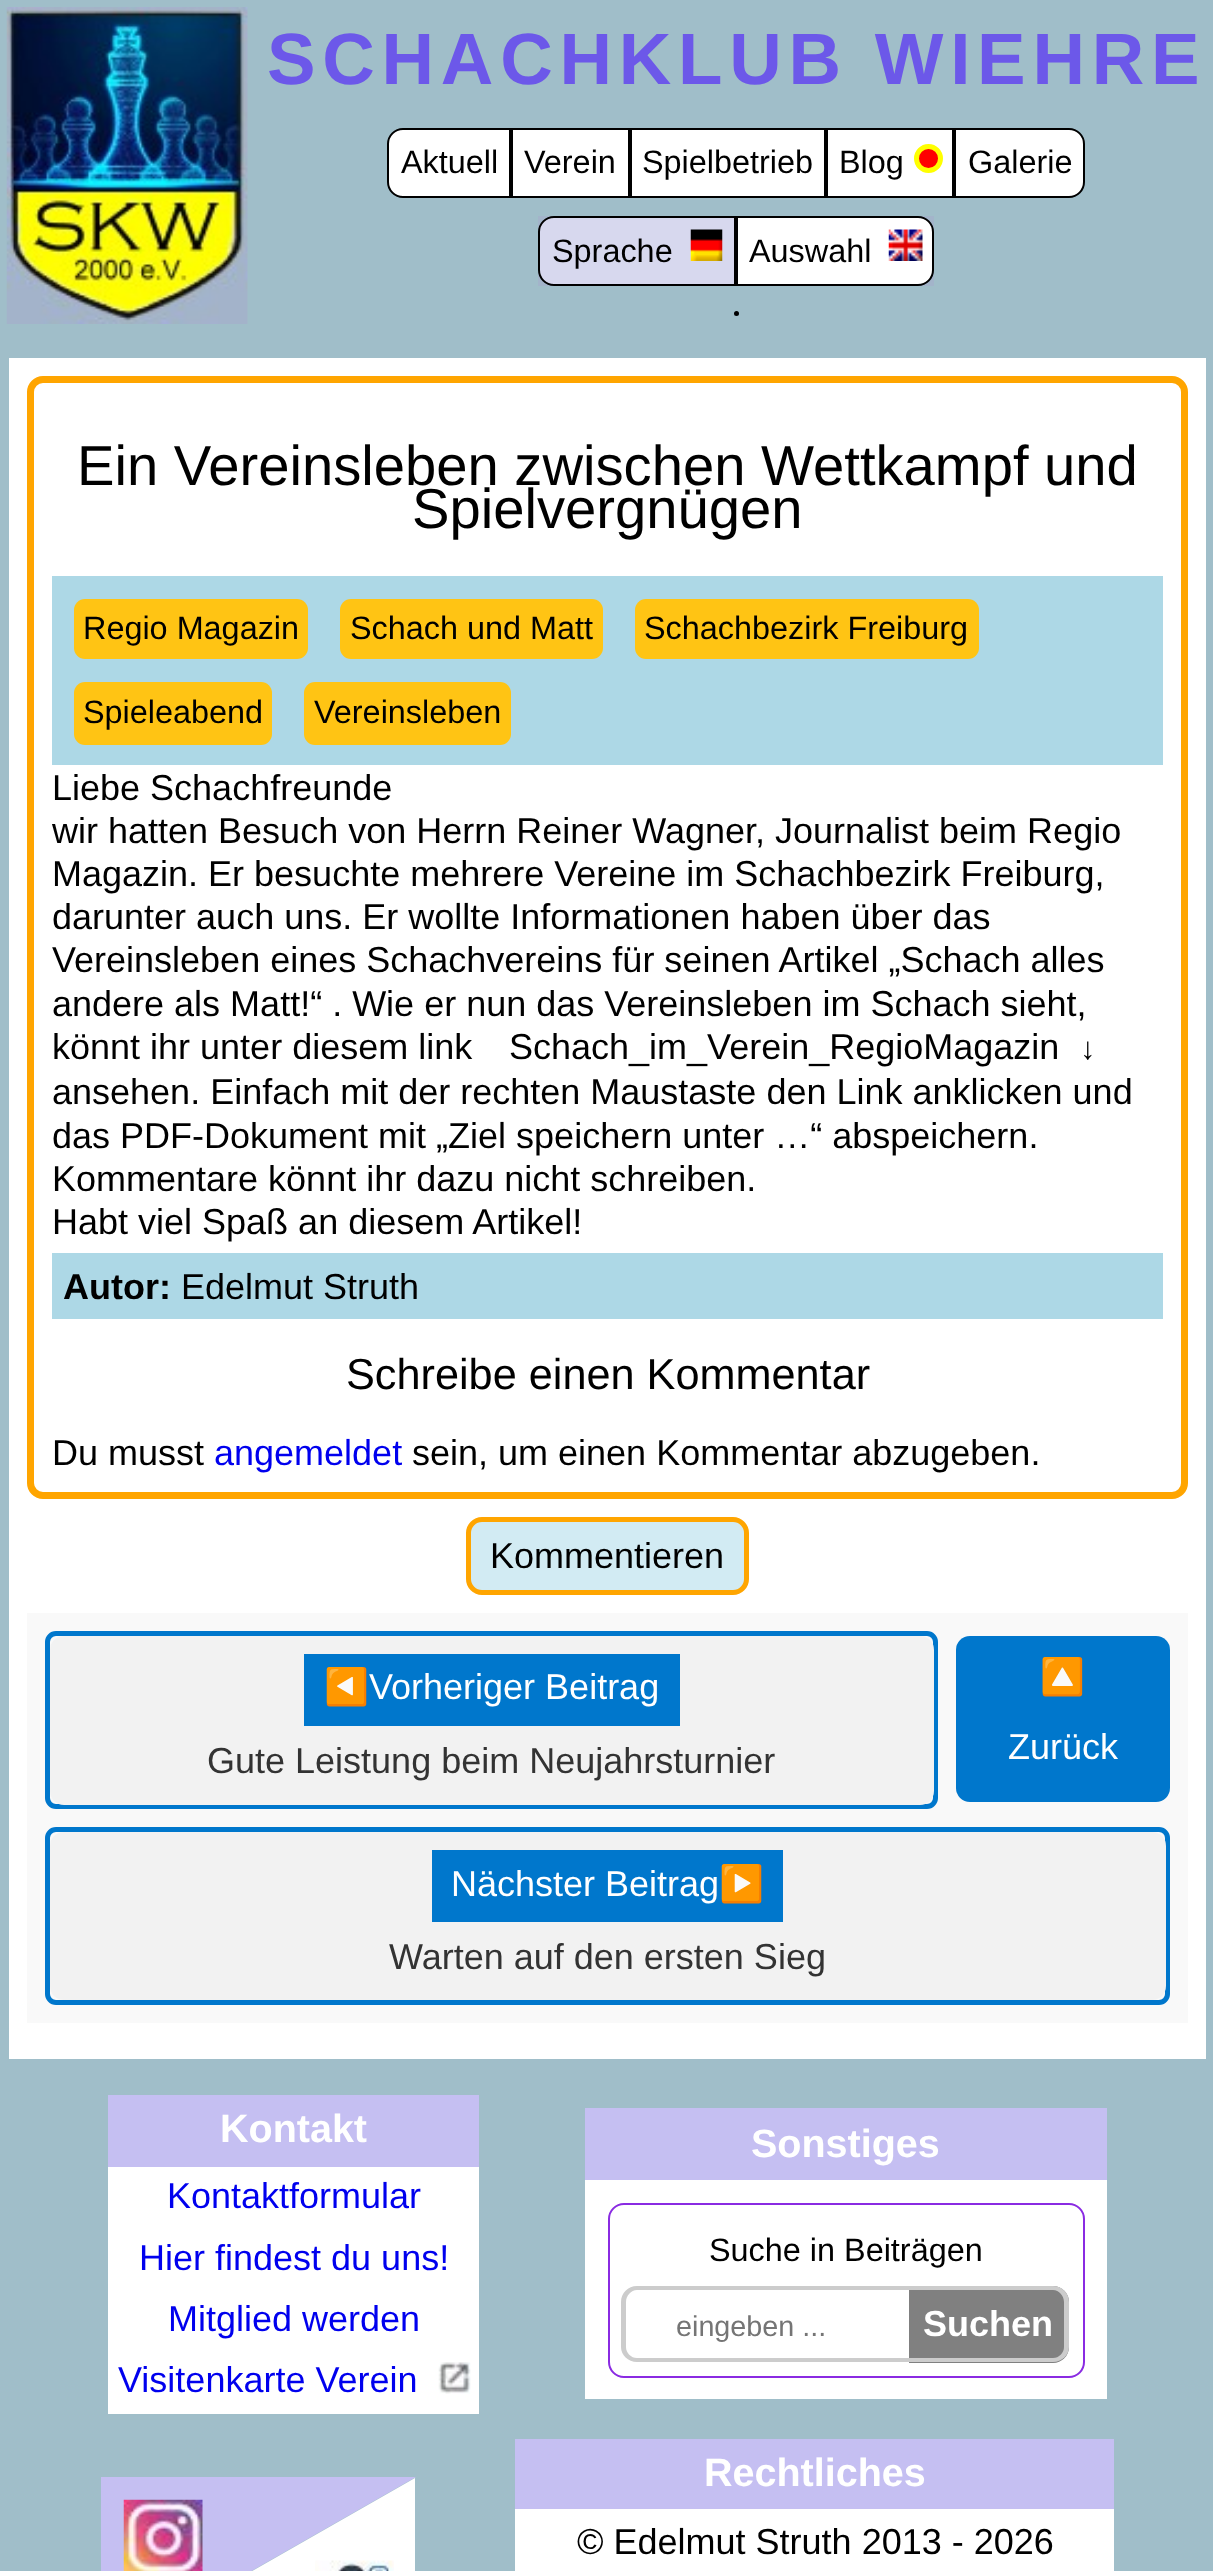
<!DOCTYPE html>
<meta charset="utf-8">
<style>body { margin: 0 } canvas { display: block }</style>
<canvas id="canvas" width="1213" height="2571"></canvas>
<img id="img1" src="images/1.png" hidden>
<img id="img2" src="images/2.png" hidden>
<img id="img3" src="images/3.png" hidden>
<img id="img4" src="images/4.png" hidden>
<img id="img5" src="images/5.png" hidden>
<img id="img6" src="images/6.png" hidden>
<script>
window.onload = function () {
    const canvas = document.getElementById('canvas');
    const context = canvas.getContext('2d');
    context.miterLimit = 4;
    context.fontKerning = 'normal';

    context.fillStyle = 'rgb(255, 255, 255)';
    context.fillRect(0, 0, 1213, 2571);
    context.fillStyle = 'rgb(160, 190, 201)';
    context.fillRect(0, 0, 1213, 349);
    context.drawImage(document.getElementById('img1'), 6, 7, 242, 317);
    context.fillStyle = 'rgb(255, 255, 255)';
    context.beginPath();
    context.roundRect(388, 129, 122, 68, [15, 0, 0, 15]);
    context.fill();
    context.strokeStyle = 'rgb(0, 0, 0)';
    context.lineWidth = 2;
    context.stroke();
    context.beginPath();
    context.rect(512, 129, 117, 68);
    context.fill();
    context.stroke();
    context.beginPath();
    context.rect(631, 129, 194, 68);
    context.fill();
    context.stroke();
    context.beginPath();
    context.rect(827, 129, 126, 68);
    context.fill();
    context.stroke();
    context.fillStyle = 'rgb(255, 0, 0)';
    context.beginPath();
    context.arc(928.5, 158.5, 12, 0, 2 * Math.PI);
    context.fill();
    context.strokeStyle = 'rgb(255, 255, 0)';
    context.lineWidth = 5;
    context.stroke();
    context.fillStyle = 'rgb(255, 255, 255)';
    context.beginPath();
    context.roundRect(955, 129, 129, 68, [0, 15, 15, 0]);
    context.fill();
    context.strokeStyle = 'rgb(0, 0, 0)';
    context.lineWidth = 2;
    context.stroke();
    context.fillStyle = 'rgb(163, 180, 202)';
    context.fillRect(538, 216, 396, 70);
    context.fillStyle = 'rgb(215, 216, 238)';
    context.beginPath();
    context.roundRect(539, 217, 196, 68, [15, 0, 0, 15]);
    context.fill();
    context.stroke();
    context.drawImage(document.getElementById('img2'), 690, 229, 33, 32);
    context.fillStyle = 'rgb(255, 255, 255)';
    context.beginPath();
    context.roundRect(737, 217, 196, 68, [0, 15, 15, 0]);
    context.fill();
    context.stroke();
    context.drawImage(document.getElementById('img3'), 888, 229, 35, 32);
    context.fillStyle = 'rgb(0, 0, 0)';
    context.beginPath();
    context.arc(736.5, 313.5, 2.5, 0, 2 * Math.PI);
    context.fill();
    context.strokeStyle = 'rgb(160, 190, 201)';
    context.lineWidth = 9;
    context.strokeRect(4.5, 353.5, 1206, 1710);
    context.beginPath();
    context.roundRect(30.5, 379.5, 1154, 1116, 12.5);
    context.strokeStyle = 'rgb(255, 165, 0)';
    context.lineWidth = 7;
    context.stroke();
    context.fillStyle = 'rgb(173, 216, 230)';
    context.fillRect(52, 576, 1111, 189);
    context.fillStyle = 'rgb(255, 196, 20)';
    context.beginPath();
    context.roundRect(74, 599, 234, 60, 11);
    context.fill();
    context.beginPath();
    context.roundRect(340, 599, 263, 60, 11);
    context.fill();
    context.beginPath();
    context.roundRect(635, 599, 344, 60, 11);
    context.fill();
    context.beginPath();
    context.roundRect(74, 682, 198, 63, 11);
    context.fill();
    context.beginPath();
    context.roundRect(304, 682, 207, 63, 11);
    context.fill();
    context.fillStyle = 'rgb(173, 216, 230)';
    context.fillRect(52, 1253, 1111, 66);
    context.fillStyle = 'rgb(210, 235, 243)';
    context.beginPath();
    context.roundRect(468.5, 1519.5, 278, 73, 13.5);
    context.fill();
    context.lineWidth = 5;
    context.stroke();
    context.fillStyle = 'rgb(249, 249, 249)';
    context.fillRect(27, 1613, 1161, 410);
    context.beginPath();
    context.roundRect(47.5, 1633.5, 888, 173, 8.5);
    context.strokeStyle = 'rgb(0, 119, 204)';
    context.stroke();
    context.fillStyle = 'rgb(242, 242, 242)';
    context.beginPath();
    context.roundRect(50, 1636, 884, 169, 14);
    context.fill();
    context.fillStyle = 'rgb(0, 119, 204)';
    context.fillRect(304, 1654, 376, 72);
    context.beginPath();
    context.roundRect(956, 1636, 214, 166, 14);
    context.fill();
    context.beginPath();
    context.roundRect(47.5, 1829.5, 1120, 173, 8.5);
    context.stroke();
    context.fillStyle = 'rgb(242, 242, 242)';
    context.beginPath();
    context.roundRect(50, 1832, 1116, 168, 14);
    context.fill();
    context.fillStyle = 'rgb(0, 119, 204)';
    context.fillRect(432, 1850, 351, 72);
    context.fillStyle = 'rgb(160, 190, 201)';
    context.fillRect(0, 2068, 1213, 503);
    context.fillStyle = 'rgb(255, 255, 255)';
    context.fillRect(108, 2167, 371, 247);
    context.fillStyle = 'rgb(197, 191, 242)';
    context.fillRect(108, 2095, 371, 72);
    context.drawImage(document.getElementById('img4'), 438, 2362, 33, 32);
    context.fillStyle = 'rgb(255, 255, 255)';
    context.fillRect(585, 2180, 522, 219);
    context.fillStyle = 'rgb(197, 191, 242)';
    context.fillRect(585, 2108, 522, 72);
    context.beginPath();
    context.roundRect(609, 2204, 475, 173, 15);
    context.strokeStyle = 'rgb(138, 43, 226)';
    context.lineWidth = 2;
    context.stroke();
    context.fillStyle = 'rgb(204, 204, 204)';
    context.beginPath();
    context.moveTo(637, 2286);
    context.lineTo(909, 2286);
    context.lineTo(909, 2362);
    context.lineTo(637, 2362);
    context.bezierCurveTo(628, 2362, 621, 2355, 621, 2347);
    context.lineTo(621, 2302);
    context.bezierCurveTo(621, 2293, 628, 2286, 637, 2286);
    context.closePath();
    context.moveTo(637, 2290);
    context.lineTo(909, 2290);
    context.lineTo(909, 2358);
    context.lineTo(637, 2358);
    context.bezierCurveTo(631, 2358, 626, 2353, 626, 2347);
    context.lineTo(626, 2302);
    context.bezierCurveTo(626, 2296, 631, 2290, 637, 2290);
    context.closePath();
    context.fill('evenodd');
    context.fillStyle = 'rgb(128, 128, 128)';
    context.beginPath();
    context.roundRect(909, 2286, 160, 77, [0, 16, 16, 0]);
    context.fill();
    context.fillStyle = 'rgb(204, 204, 204)';
    context.beginPath();
    context.moveTo(909, 2286);
    context.lineTo(1053, 2286);
    context.bezierCurveTo(1062, 2286, 1069, 2293, 1069, 2302);
    context.lineTo(1069, 2347);
    context.bezierCurveTo(1069, 2355, 1062, 2362, 1053, 2362);
    context.lineTo(909, 2362);
    context.closePath();
    context.moveTo(909, 2290);
    context.lineTo(1053, 2290);
    context.bezierCurveTo(1059, 2290, 1064, 2296, 1064, 2302);
    context.lineTo(1064, 2347);
    context.bezierCurveTo(1064, 2353, 1059, 2358, 1053, 2358);
    context.lineTo(909, 2358);
    context.closePath();
    context.fill('evenodd');
    context.fillStyle = 'rgb(197, 191, 242)';
    context.beginPath();
    context.moveTo(101, 2477);
    context.lineTo(416, 2477);
    context.lineTo(101, 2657);
    context.closePath();
    context.fill();
    context.drawImage(document.getElementById('img5'), 123, 2499, 80, 72);
    context.fillStyle = 'rgb(255, 255, 255)';
    context.beginPath();
    context.moveTo(415, 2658);
    context.lineTo(100, 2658);
    context.lineTo(415, 2478);
    context.closePath();
    context.fill();
    context.drawImage(document.getElementById('img6'), 315, 2560, 79, 11);
    context.fillRect(515, 2509, 599, 62);
    context.fillStyle = 'rgb(197, 191, 242)';
    context.fillRect(515, 2439, 599, 70);
    context.letterSpacing = '6.75px';
    context.font = 'bold 72.75px Liberation Sans';
    context.fillStyle = 'rgb(108, 88, 233)';
    context.fillText('SCHACHKLUB WIEHRE', 267, 84);
    context.letterSpacing = '0px';
    context.font = '32.4px Liberation Sans';
    context.fillStyle = 'rgb(0, 0, 0)';
    context.fillText('Aktuell', 401, 173);
    context.fillText('Verein', 524, 173);
    context.fillText('Spielbetrieb', 642, 173);
    context.fillText('Blog', 839, 173);
    context.fillText('Galerie', 968, 173);
    context.fillText('Sprache', 552, 262);
    context.fillText('Auswahl', 749, 262);
    context.font = '56.2px Liberation Sans';
    context.fillText('Ein Vereinsleben zwischen Wettkampf und', 77, 485);
    context.fillText('Spielvergnügen', 412, 528);
    context.font = '32.4px Liberation Sans';
    context.fillText('Regio Magazin', 83, 639);
    context.fillText('Schach und Matt', 350, 639);
    context.fillText('Schachbezirk Freiburg', 644, 639);
    context.fillText('Spieleabend', 83, 723);
    context.fillText('Vereinsleben', 314, 723);
    context.font = '36px Liberation Sans';
    context.fillText('Liebe Schachfreunde', 52, 800);
    context.fillText('wir hatten Besuch von Herrn Reiner Wagner, Journalist beim Regio', 52, 843);
    context.fillText('Magazin. Er besuchte mehrere Vereine im Schachbezirk Freiburg,', 52, 886);
    context.fillText('darunter auch uns. Er wollte Informationen haben über das', 52, 929);
    context.fillText('Vereinsleben eines Schachvereins für seinen Artikel „Schach alles', 52, 972);
    context.fillText('andere als Matt!“ . Wie er nun das Vereinsleben im Schach sieht,', 52, 1016);
    context.fillText('könnt ihr unter diesem link', 52, 1059);
    context.fillText('Schach_im_Verein_RegioMagazin', 509, 1059);
    context.font = '31px Liberation Sans';
    context.fillText('↓', 1080, 1059);
    context.font = '36px Liberation Sans';
    context.fillText('ansehen. Einfach mit der rechten Maustaste den Link anklicken und', 52, 1104);
    context.fillText('das PDF-Dokument mit „Ziel speichern unter …“ abspeichern.', 52, 1148);
    context.fillText('Kommentare könnt ihr dazu nicht schreiben.', 52, 1191);
    context.fillText('Habt viel Spaß an diesem Artikel!', 52, 1234);
    context.font = 'bold 36px Liberation Sans';
    context.fillText('Autor:', 63, 1299);
    context.font = '36px Liberation Sans';
    context.fillText('Edelmut Struth', 181, 1299);
    context.font = '43.25px Liberation Sans';
    context.fillText('Schreibe einen Kommentar', 346, 1389);
    context.font = '36px Liberation Sans';
    context.fillText('Du musst', 52, 1465);
    context.fillStyle = 'rgb(0, 0, 238)';
    context.fillText('angemeldet', 214, 1465);
    context.fillStyle = 'rgb(0, 0, 0)';
    context.fillText('sein, um einen Kommentar abzugeben.', 412, 1465);
    context.fillText('Kommentieren', 490, 1568);
    context.font = '36px Noto Color Emoji';
    context.fillStyle = 'rgb(255, 255, 255)';
    context.fillText('◀️', 324, 1699);
    context.font = '36px Liberation Sans';
    context.fillText('Vorheriger Beitrag', 369, 1699);
    context.fillStyle = 'rgb(51, 51, 51)';
    context.fillText('Gute Leistung beim Neujahrsturnier', 207, 1773);
    context.font = '36px Noto Color Emoji';
    context.fillStyle = 'rgb(255, 255, 255)';
    context.fillText('🔼', 1040, 1689);
    context.font = '36px Liberation Sans';
    context.fillText('Zurück', 1008, 1759);
    context.fillText('Nächster Beitrag', 451, 1896);
    context.font = '36px Noto Color Emoji';
    context.fillText('▶️', 719, 1896);
    context.font = '36px Liberation Sans';
    context.fillStyle = 'rgb(51, 51, 51)';
    context.fillText('Warten auf den ersten Sieg', 389, 1969);
    context.font = 'bold 39.5px Liberation Sans';
    context.fillStyle = 'rgb(255, 255, 255)';
    context.fillText('Kontakt', 220, 2142);
    context.font = '36px Liberation Sans';
    context.fillStyle = 'rgb(0, 0, 238)';
    context.fillText('Kontaktformular', 167, 2208);
    context.fillText('Hier findest du uns!', 139, 2270);
    context.fillText('Mitglied werden', 168, 2331);
    context.fillText('Visitenkarte Verein', 118, 2392);
    context.font = 'bold 39.5px Liberation Sans';
    context.fillStyle = 'rgb(255, 255, 255)';
    context.fillText('Sonstiges', 751, 2157);
    context.font = '32.4px Liberation Sans';
    context.fillStyle = 'rgb(0, 0, 0)';
    context.fillText('Suche in Beiträgen', 709, 2261);
    context.font = '28.75px Liberation Sans';
    context.fillStyle = 'rgb(117, 117, 117)';
    context.fillText('eingeben ...', 676, 2336);
    context.font = 'bold 36px Liberation Sans';
    context.fillStyle = 'rgb(255, 255, 255)';
    context.fillText('Suchen', 923, 2336);
    context.font = 'bold 39.5px Liberation Sans';
    context.fillText('Rechtliches', 704, 2486);
    context.font = '36px Liberation Sans';
    context.fillStyle = 'rgb(0, 0, 0)';
    context.fillText('© Edelmut Struth 2013 - 2026', 577, 2554);
};
</script>
